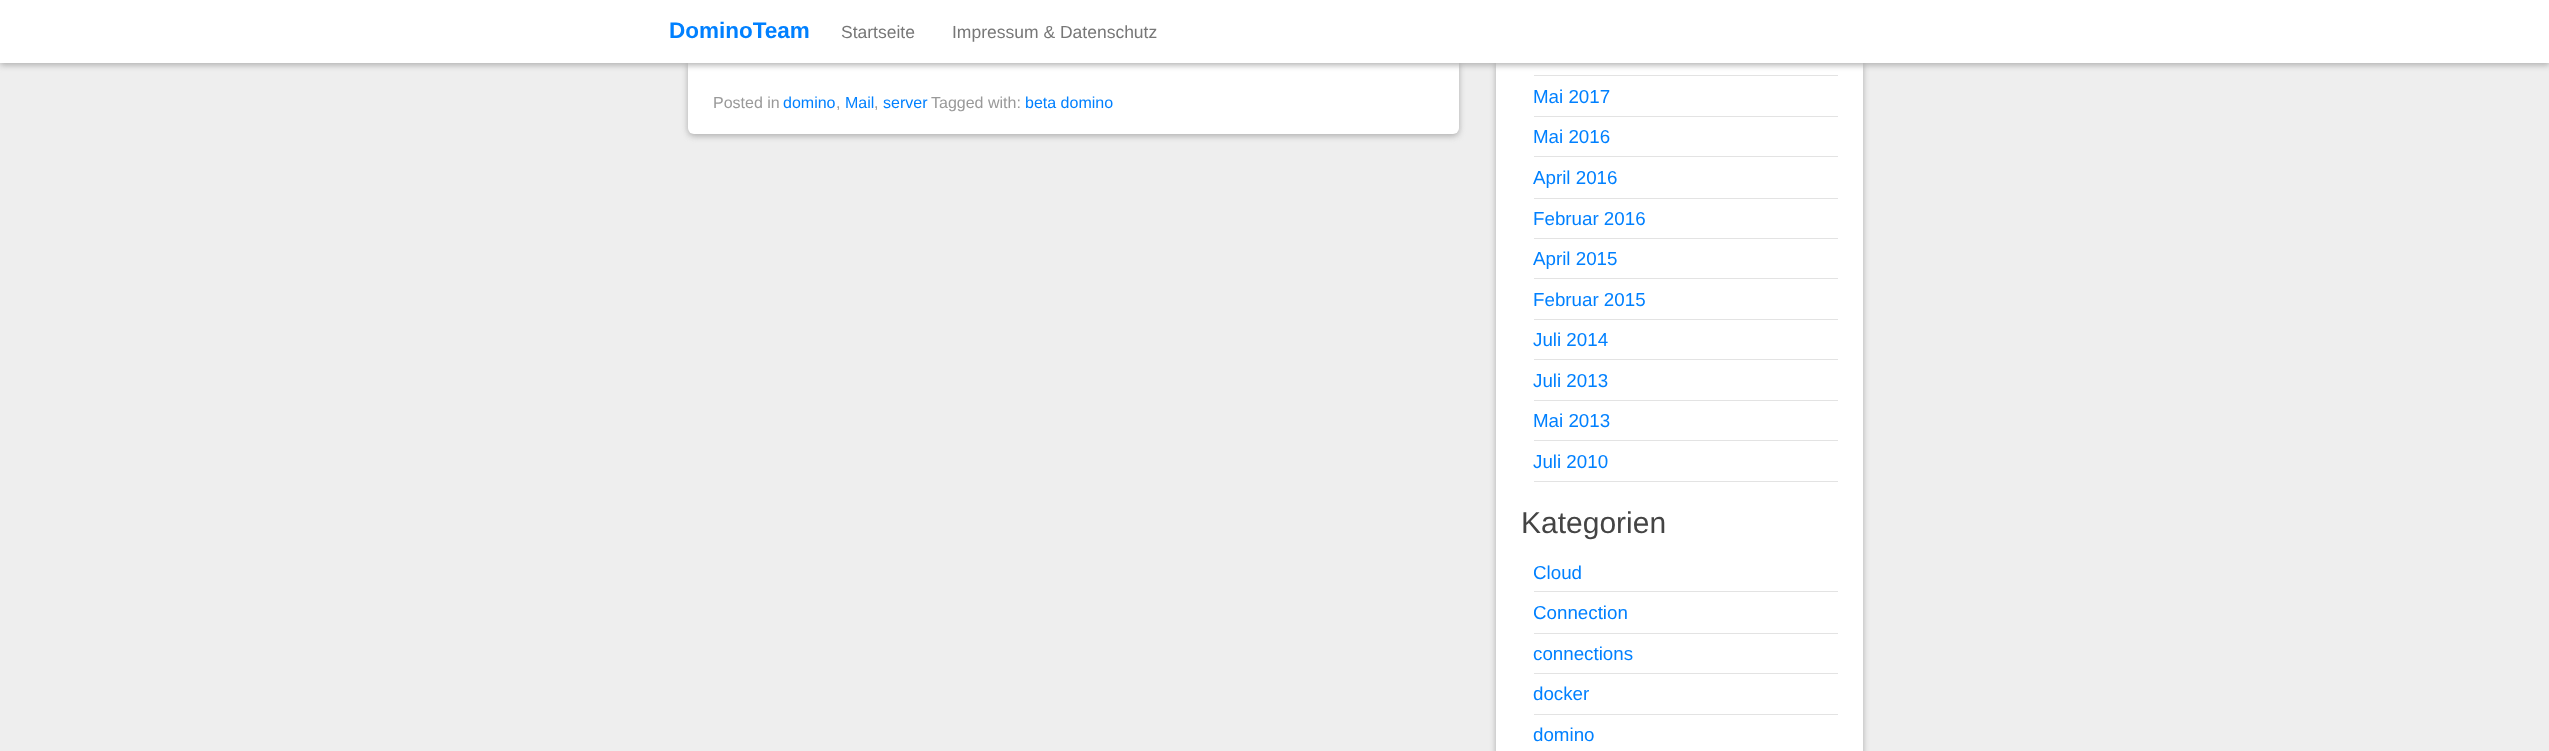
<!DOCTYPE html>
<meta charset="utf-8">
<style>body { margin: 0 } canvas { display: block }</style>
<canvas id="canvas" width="2549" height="751"></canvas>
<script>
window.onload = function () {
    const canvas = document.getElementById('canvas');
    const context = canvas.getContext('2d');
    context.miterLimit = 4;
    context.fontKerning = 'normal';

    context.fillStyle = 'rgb(238, 238, 238)';
    context.fillRect(0, 0, 2549, 751);
    context.fillStyle = 'rgb(173, 173, 173)';
    context.filter = 'blur(3px)';
    context.beginPath();
    context.roundRect(688, -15, 771, 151, 6);
    context.fill();
    context.filter = 'none';
    context.fillStyle = 'rgb(255, 255, 255)';
    context.beginPath();
    context.roundRect(688, -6, 771, 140, 6);
    context.fill();
    context.fillStyle = 'rgb(173, 173, 173)';
    context.filter = 'blur(3px)';
    context.beginPath();
    context.roundRect(1496, -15, 367, 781, 6);
    context.fill();
    context.filter = 'none';
    context.fillStyle = 'rgb(255, 255, 255)';
    context.fillRect(1496, 63, 367, 688);
    context.fillStyle = 'rgb(173, 173, 173)';
    context.filter = 'blur(3px)';
    context.beginPath();
    context.rect(0, 3, 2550, 62);
    context.fill();
    context.filter = 'none';
    context.fillStyle = 'rgb(255, 255, 255)';
    context.fillRect(0, 0, 2549, 63);
    context.fillStyle = 'rgb(227, 227, 227)';
    context.fillRect(1534, 75, 304, 1);
    context.fillRect(1534, 116, 304, 1);
    context.fillRect(1534, 156, 304, 1);
    context.fillRect(1534, 198, 304, 1);
    context.fillRect(1534, 238, 304, 1);
    context.fillRect(1534, 278, 304, 1);
    context.fillRect(1534, 319, 304, 1);
    context.fillRect(1534, 359, 304, 1);
    context.fillRect(1534, 400, 304, 1);
    context.fillRect(1534, 440, 304, 1);
    context.fillRect(1534, 481, 304, 1);
    context.fillRect(1534, 591, 304, 1);
    context.fillRect(1534, 633, 304, 1);
    context.fillRect(1534, 673, 304, 1);
    context.fillRect(1534, 714, 304, 1);
    context.font = 'bold 22.5px Liberation Sans';
    context.fillStyle = 'rgb(0, 128, 255)';
    context.fillText('DominoTeam', 669, 38);
    context.font = '17.5px Liberation Sans';
    context.fillStyle = 'rgb(119, 119, 119)';
    context.fillText('Startseite', 841, 38);
    context.fillText('Impressum & Datenschutz', 952, 38);
    context.font = '16px Liberation Sans';
    context.fillStyle = 'rgb(153, 153, 153)';
    context.fillText('Posted in', 713, 108);
    context.fillStyle = 'rgb(0, 128, 255)';
    context.fillText('domino', 783, 108);
    context.fillStyle = 'rgb(153, 153, 153)';
    context.fillText(',', 836, 108);
    context.fillStyle = 'rgb(0, 128, 255)';
    context.fillText('Mail', 845, 108);
    context.fillStyle = 'rgb(153, 153, 153)';
    context.fillText(',', 874, 108);
    context.fillStyle = 'rgb(0, 128, 255)';
    context.fillText('server', 883, 108);
    context.fillStyle = 'rgb(153, 153, 153)';
    context.fillText('Tagged with:', 931, 108);
    context.fillStyle = 'rgb(0, 128, 255)';
    context.fillText('beta domino', 1025, 108);
    context.font = '18.75px Liberation Sans';
    context.fillText('Mai 2017', 1533, 103);
    context.fillText('Mai 2016', 1533, 143);
    context.fillText('April 2016', 1533, 184);
    context.fillText('Februar 2016', 1533, 225);
    context.fillText('April 2015', 1533, 265);
    context.fillText('Februar 2015', 1533, 306);
    context.fillText('Juli 2014', 1533, 346);
    context.fillText('Juli 2013', 1533, 387);
    context.fillText('Mai 2013', 1533, 427);
    context.fillText('Juli 2010', 1533, 468);
    context.font = '30px Liberation Sans';
    context.fillStyle = 'rgb(68, 68, 68)';
    context.fillText('Kategorien', 1521, 533);
    context.font = '18.75px Liberation Sans';
    context.fillStyle = 'rgb(0, 128, 255)';
    context.fillText('Cloud', 1533, 579);
    context.fillText('Connection', 1533, 619);
    context.fillText('connections', 1533, 660);
    context.fillText('docker', 1533, 700);
    context.fillText('domino', 1533, 741);
};
</script>
